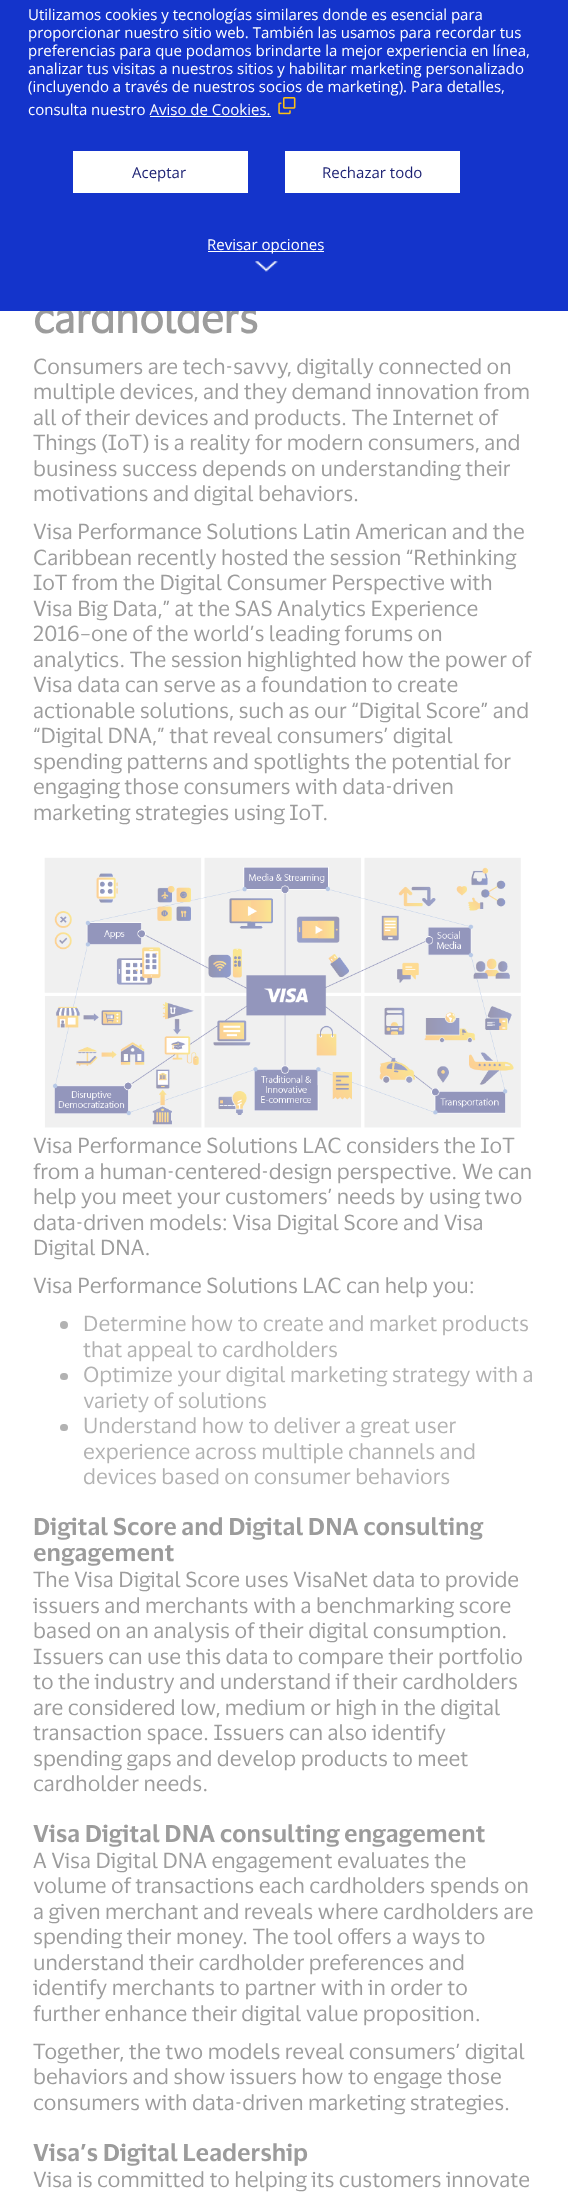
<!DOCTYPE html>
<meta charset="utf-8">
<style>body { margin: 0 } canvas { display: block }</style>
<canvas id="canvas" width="568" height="2204"></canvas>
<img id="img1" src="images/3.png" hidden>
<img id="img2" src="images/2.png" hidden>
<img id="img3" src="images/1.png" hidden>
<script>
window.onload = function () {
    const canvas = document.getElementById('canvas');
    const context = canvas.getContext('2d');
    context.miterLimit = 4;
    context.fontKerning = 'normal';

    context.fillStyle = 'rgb(255, 255, 255)';
    context.fillRect(0, 0, 568, 2204);
    context.drawImage(document.getElementById('img1'), 44, 857, 477, 271);
    context.fillStyle = 'rgb(178, 178, 178)';
    context.beginPath();
    context.arc(64, 1325, 4, 0, 2 * Math.PI);
    context.fill();
    context.beginPath();
    context.roundRect(60, 1373, 8, 7, 3.5);
    context.fill();
    context.beginPath();
    context.roundRect(60, 1424, 8, 7, 3.5);
    context.fill();
    context.font = 'bold 41.25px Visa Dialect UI';
    context.fillStyle = 'rgb(156, 156, 156)';
    context.fillText('cardholders', 33, 333);
    context.fillStyle = 'rgb(20, 52, 203)';
    context.fillRect(0, 0, 568, 311);
    context.drawImage(document.getElementById('img2'), 255, 261, 23, 11);
    context.fillStyle = 'rgb(255, 255, 255)';
    context.fillRect(208, 251, 116, 1);
    context.font = '15px Open Sans';
    context.fillText('Revisar opciones', 207, 250);
    context.fillRect(285, 151, 175, 42);
    context.fillStyle = 'rgb(26, 31, 114)';
    context.fillText('Rechazar todo', 322, 178);
    context.fillStyle = 'rgb(255, 255, 255)';
    context.fillRect(73, 151, 175, 42);
    context.fillStyle = 'rgb(26, 31, 114)';
    context.fillText('Aceptar', 132, 178);
    context.drawImage(document.getElementById('img3'), 278, 97, 18, 18);
    context.fillStyle = 'rgb(255, 255, 255)';
    context.fillRect(150, 116, 121, 1);
    context.fillText('consulta nuestro Aviso de Cookies.', 28, 115);
    context.fillText('(incluyendo a través de nuestros socios de marketing). Para detalles,', 28, 92);
    context.fillText('analizar tus visitas a nuestros sitios y habilitar marketing personalizado', 28, 74);
    context.fillText('preferencias para que podamos brindarte la mejor experiencia en línea,', 28, 56);
    context.fillText('proporcionar nuestro sitio web. También las usamos para recordar tus', 28, 38);
    context.fillText('Utilizamos cookies y tecnologías similares donde es esencial para', 28, 20);
    context.font = '21.25px Visa Dialect UI';
    context.fillStyle = 'rgb(156, 156, 156)';
    context.fillText('Consumers are tech-savvy, digitally connected on', 33, 374);
    context.fillText('multiple devices, and they demand innovation from', 33, 399);
    context.fillText('all of their devices and products. The Internet of', 33, 425);
    context.fillText('Things (IoT) is a reality for modern consumers, and', 33, 450);
    context.fillText('business success depends on understanding their', 33, 476);
    context.fillText('motivations and digital behaviors.', 33, 501);
    context.fillText('Visa Performance Solutions Latin American and the', 33, 539);
    context.fillText('Caribbean recently hosted the session “Rethinking', 33, 565);
    context.fillText('IoT from the Digital Consumer Perspective with', 33, 590);
    context.fillText('Visa Big Data,” at the SAS Analytics Experience', 33, 616);
    context.fillText('2016–one of the world’s leading forums on', 33, 641);
    context.fillText('analytics. The session highlighted how the power of', 33, 667);
    context.fillText('Visa data can serve as a foundation to create', 33, 692);
    context.fillText('actionable solutions, such as our “Digital Score” and', 33, 718);
    context.fillText('“Digital DNA,” that reveal consumers’ digital', 33, 743);
    context.fillText('spending patterns and spotlights the potential for', 33, 769);
    context.fillText('engaging those consumers with data-driven', 33, 794);
    context.fillText('marketing strategies using IoT.', 33, 820);
    context.fillText('Visa Performance Solutions LAC considers the IoT', 33, 1153);
    context.fillText('from a human-centered-design perspective. We can', 33, 1179);
    context.fillText('help you meet your customers’ needs by using two', 33, 1204);
    context.fillText('data-driven models: Visa Digital Score and Visa', 33, 1230);
    context.fillText('Digital DNA.', 33, 1255);
    context.fillText('Visa Performance Solutions LAC can help you:', 33, 1293);
    context.fillStyle = 'rgb(178, 178, 178)';
    context.fillText('Determine how to create and market products', 83, 1331);
    context.fillText('that appeal to cardholders', 83, 1357);
    context.fillText('Optimize your digital marketing strategy with a', 83, 1382);
    context.fillText('variety of solutions', 83, 1408);
    context.fillText('Understand how to deliver a great user', 83, 1433);
    context.fillText('experience across multiple channels and', 83, 1459);
    context.fillText('devices based on consumer behaviors', 83, 1484);
    context.font = '600 23.75px Visa Dialect UI';
    context.fillStyle = 'rgb(156, 156, 156)';
    context.fillText('Digital Score and Digital DNA consulting', 33, 1535);
    context.fillText('engagement', 33, 1561);
    context.font = '21.25px Visa Dialect UI';
    context.fillText('The Visa Digital Score uses VisaNet data to provide', 33, 1587);
    context.fillText('issuers and merchants with a benchmarking score', 33, 1613);
    context.fillText('based on an analysis of their digital consumption.', 33, 1638);
    context.fillText('Issuers can use this data to compare their portfolio', 33, 1664);
    context.fillText('to the industry and understand if their cardholders', 33, 1689);
    context.fillText('are considered low, medium or high in the digital', 33, 1715);
    context.fillText('transaction space. Issuers can also identify', 33, 1740);
    context.fillText('spending gaps and develop products to meet', 33, 1766);
    context.fillText('cardholder needs.', 33, 1791);
    context.font = '600 23.75px Visa Dialect UI';
    context.fillText('Visa Digital DNA consulting engagement', 33, 1842);
    context.font = '21.25px Visa Dialect UI';
    context.fillText('A Visa Digital DNA engagement evaluates the', 33, 1868);
    context.fillText('volume of transactions each cardholders spends on', 33, 1893);
    context.fillText('a given merchant and reveals where cardholders are', 33, 1919);
    context.fillText('spending their money. The tool offers a ways to', 33, 1944);
    context.fillText('understand their cardholder preferences and', 33, 1970);
    context.fillText('identify merchants to partner with in order to', 33, 1995);
    context.fillText('further enhance their digital value proposition.', 33, 2021);
    context.fillText('Together, the two models reveal consumers’ digital', 33, 2059);
    context.fillText('behaviors and show issuers how to engage those', 33, 2084);
    context.fillText('consumers with data-driven marketing strategies.', 33, 2110);
    context.font = '600 23.75px Visa Dialect UI';
    context.fillText('Visa’s Digital Leadership', 33, 2161);
    context.font = '21.25px Visa Dialect UI';
    context.fillText('Visa is committed to helping its customers innovate', 33, 2187);
};
</script>
